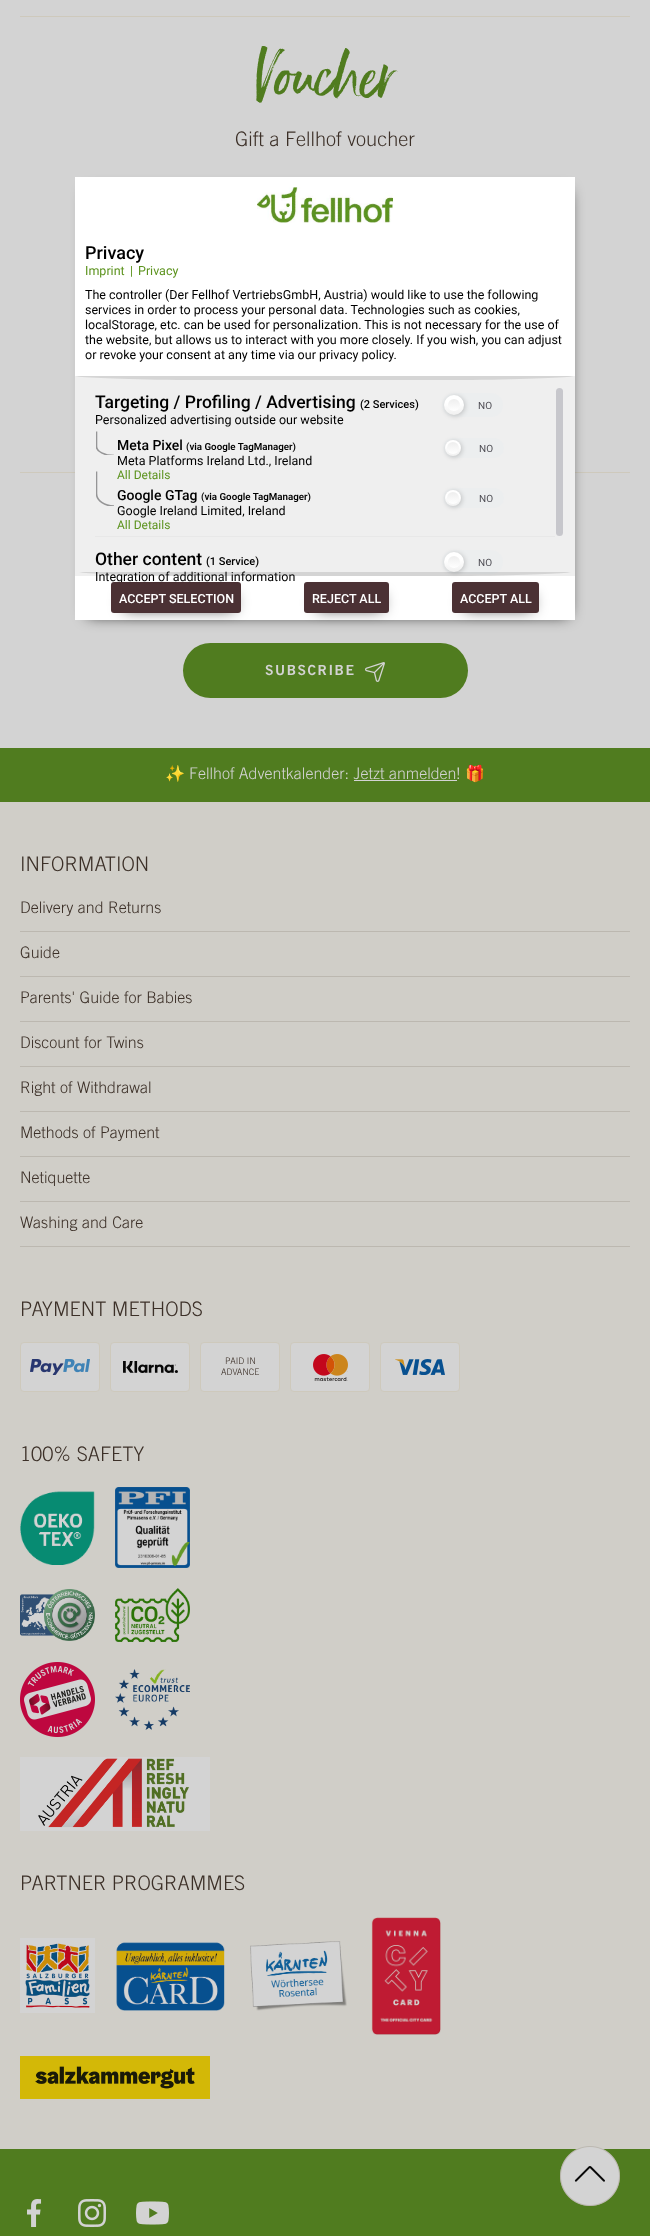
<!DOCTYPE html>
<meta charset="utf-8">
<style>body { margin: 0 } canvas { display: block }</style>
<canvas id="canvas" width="650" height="2236"></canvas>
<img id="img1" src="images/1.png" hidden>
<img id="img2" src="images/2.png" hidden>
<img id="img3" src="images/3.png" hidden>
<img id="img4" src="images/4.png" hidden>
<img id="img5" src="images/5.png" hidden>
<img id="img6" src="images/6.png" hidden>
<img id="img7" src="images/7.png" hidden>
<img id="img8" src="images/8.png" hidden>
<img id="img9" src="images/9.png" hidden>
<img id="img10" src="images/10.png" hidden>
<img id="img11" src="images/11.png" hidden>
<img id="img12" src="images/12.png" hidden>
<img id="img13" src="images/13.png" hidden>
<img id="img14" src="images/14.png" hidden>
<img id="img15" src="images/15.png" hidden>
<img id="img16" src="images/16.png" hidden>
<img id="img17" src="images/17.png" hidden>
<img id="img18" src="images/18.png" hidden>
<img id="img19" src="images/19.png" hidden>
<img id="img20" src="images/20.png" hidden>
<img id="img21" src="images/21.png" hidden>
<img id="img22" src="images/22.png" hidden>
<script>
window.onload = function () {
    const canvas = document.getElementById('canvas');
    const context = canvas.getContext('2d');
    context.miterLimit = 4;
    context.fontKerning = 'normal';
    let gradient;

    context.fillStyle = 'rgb(211, 211, 211)';
    context.fillRect(0, 0, 650, 2236);
    context.fillStyle = 'rgb(206, 201, 188)';
    context.fillRect(20, 16, 610, 1);
    context.fillRect(20, 472, 610, 1);
    context.fillStyle = 'rgb(80, 124, 31)';
    context.beginPath();
    context.roundRect(183, 643, 285, 55, 27.5);
    context.fill();
    context.drawImage(document.getElementById('img1'), 365, 662, 20, 20);
    context.fillRect(0, 748, 650, 54);
    context.fillStyle = 'rgb(211, 211, 211)';
    context.fillRect(354, 780, 103, 1);
    context.fillStyle = 'rgb(208, 206, 200)';
    context.fillRect(0, 802, 650, 1347);
    context.fillStyle = 'rgb(188, 184, 176)';
    context.fillRect(20, 931, 610, 1);
    context.fillRect(20, 976, 610, 1);
    context.fillRect(20, 1021, 610, 1);
    context.fillRect(20, 1066, 610, 1);
    context.fillRect(20, 1111, 610, 1);
    context.fillRect(20, 1156, 610, 1);
    context.fillRect(20, 1201, 610, 1);
    context.fillRect(20, 1246, 610, 1);
    context.fillStyle = 'rgb(211, 211, 211)';
    context.beginPath();
    context.roundRect(20.5, 1342.5, 79, 49, 3.5);
    context.fill();
    context.strokeStyle = 'rgb(206, 201, 188)';
    context.stroke();
    context.drawImage(document.getElementById('img2'), 30, 1359, 60, 16);
    context.beginPath();
    context.roundRect(110.5, 1342.5, 79, 49, 3.5);
    context.fill();
    context.stroke();
    context.drawImage(document.getElementById('img3'), 123, 1361, 55, 12);
    context.beginPath();
    context.roundRect(200.5, 1342.5, 79, 49, 3.5);
    context.fill();
    context.stroke();
    context.beginPath();
    context.roundRect(290.5, 1342.5, 79, 49, 3.5);
    context.fill();
    context.stroke();
    context.drawImage(document.getElementById('img4'), 313, 1354, 35, 27);
    context.beginPath();
    context.roundRect(380.5, 1342.5, 79, 49, 3.5);
    context.fill();
    context.stroke();
    context.drawImage(document.getElementById('img5'), 395, 1359, 50, 16);
    context.drawImage(document.getElementById('img6'), 20, 1491, 75, 74);
    context.drawImage(document.getElementById('img7'), 115, 1487, 75, 81);
    context.drawImage(document.getElementById('img8'), 20, 1589, 75, 52);
    context.drawImage(document.getElementById('img9'), 115, 1588, 75, 54);
    context.drawImage(document.getElementById('img10'), 20, 1662, 75, 75);
    context.drawImage(document.getElementById('img11'), 115, 1669, 75, 61);
    context.drawImage(document.getElementById('img12'), 20, 1757, 190, 74);
    context.drawImage(document.getElementById('img13'), 20, 1938, 75, 75);
    context.drawImage(document.getElementById('img14'), 116, 1942, 109, 69);
    context.drawImage(document.getElementById('img15'), 250, 1941, 97, 70);
    context.drawImage(document.getElementById('img16'), 371, 1917, 70, 118);
    context.drawImage(document.getElementById('img17'), 20, 2056, 190, 43);
    context.fillStyle = 'rgb(80, 124, 31)';
    context.fillRect(0, 2149, 650, 87);
    context.drawImage(document.getElementById('img18'), 27, 2199, 15, 28);
    context.drawImage(document.getElementById('img19'), 78, 2199, 28, 28);
    context.drawImage(document.getElementById('img20'), 136, 2201, 33, 24);
    context.drawImage(document.getElementById('img21'), 560, 2146, 60, 60);
    context.fillStyle = 'rgb(0, 0, 0)';
    context.filter = 'blur(7.5px)';
    context.beginPath();
    context.rect(88, 192, 480, 423);
    context.fill();
    context.filter = 'none';
    context.fillStyle = 'rgb(255, 255, 255)';
    context.fillRect(75, 177, 500, 443);
    context.drawImage(document.getElementById('img22'), 257, 187, 136, 36);
    context.fillStyle = 'rgb(239, 239, 239)';
    context.fillRect(75, 376, 500, 200);
    context.save();
    context.beginPath();
    context.rect(75, 376, 499, 4);
    context.clip();
    context.fillStyle = 'rgb(213, 213, 213)';
    context.beginPath();
    context.moveTo(75, 376);
    context.bezierCurveTo(87, 379, 194, 381, 324, 381);
    context.bezierCurveTo(455, 381, 562, 379, 574, 376);
    context.closePath();
    context.fill();
    context.restore();
    context.fillStyle = 'rgb(236, 238, 239)';
    context.beginPath();
    context.roundRect(442, 393, 61, 24, 12);
    context.fill();
    context.fillStyle = 'rgba(0, 0, 0, 0.2)';
    context.filter = 'blur(2.5px)';
    context.beginPath();
    context.roundRect(445, 396, 20, 20, 10);
    context.fill();
    context.filter = 'none';
    gradient = context.createLinearGradient(454, 395, 454, 415);
    gradient.addColorStop(0.4, 'rgb(255, 255, 255)');
    gradient.addColorStop(1, 'rgb(240, 240, 240)');
    context.fillStyle = gradient;
    context.beginPath();
    context.arc(454, 405, 10, 0, 2 * Math.PI);
    context.fill();
    gradient = context.createLinearGradient(454, 399, 454, 411);
    gradient.addColorStop(0, 'rgb(238, 238, 238)');
    gradient.addColorStop(1, 'rgb(255, 255, 255)');
    context.fillStyle = gradient;
    context.beginPath();
    context.arc(454, 405, 6, 0, 2 * Math.PI);
    context.fill();
    context.save();
    context.beginPath();
    context.rect(96, 431, 18, 24);
    context.clip();
    context.beginPath();
    context.moveTo(114, 455.5);
    context.bezierCurveTo(104.5, 455.5, 96.5, 451.5, 96.5, 446.5);
    context.lineTo(96.5, 431.5);
    context.strokeStyle = 'rgb(149, 149, 150)';
    context.lineWidth = 1.6;
    context.stroke();
    context.restore();
    context.fillStyle = 'rgb(236, 238, 239)';
    context.beginPath();
    context.roundRect(443, 438, 61, 20, 10);
    context.fill();
    context.fillStyle = 'rgba(0, 0, 0, 0.2)';
    context.filter = 'blur(2.5px)';
    context.beginPath();
    context.roundRect(446, 441, 16, 16, 8);
    context.fill();
    context.filter = 'none';
    gradient = context.createLinearGradient(453, 440, 453, 456);
    gradient.addColorStop(0.4, 'rgb(255, 255, 255)');
    gradient.addColorStop(1, 'rgb(240, 240, 240)');
    context.fillStyle = gradient;
    context.beginPath();
    context.arc(453, 448, 8, 0, 2 * Math.PI);
    context.fill();
    gradient = context.createLinearGradient(453, 442, 453, 454);
    gradient.addColorStop(0, 'rgb(238, 238, 238)');
    gradient.addColorStop(1, 'rgb(255, 255, 255)');
    context.fillStyle = gradient;
    context.beginPath();
    context.arc(453, 448, 6, 0, 2 * Math.PI);
    context.fill();
    context.save();
    context.beginPath();
    context.rect(96, 471, 18, 35);
    context.clip();
    context.beginPath();
    context.moveTo(114, 506);
    context.bezierCurveTo(104.5, 506, 96.5, 500.5, 96.5, 493.5);
    context.lineTo(96.5, 471.5);
    context.strokeStyle = 'rgb(149, 149, 150)';
    context.lineWidth = 1.6;
    context.stroke();
    context.restore();
    context.fillStyle = 'rgb(236, 238, 239)';
    context.beginPath();
    context.roundRect(443, 488, 61, 20, 10);
    context.fill();
    context.fillStyle = 'rgba(0, 0, 0, 0.2)';
    context.filter = 'blur(2.5px)';
    context.beginPath();
    context.roundRect(446, 491, 16, 16, 8);
    context.fill();
    context.filter = 'none';
    gradient = context.createLinearGradient(453, 490, 453, 506);
    gradient.addColorStop(0.4, 'rgb(255, 255, 255)');
    gradient.addColorStop(1, 'rgb(240, 240, 240)');
    context.fillStyle = gradient;
    context.beginPath();
    context.arc(453, 498, 8, 0, 2 * Math.PI);
    context.fill();
    gradient = context.createLinearGradient(453, 492, 453, 504);
    gradient.addColorStop(0, 'rgb(238, 238, 238)');
    gradient.addColorStop(1, 'rgb(255, 255, 255)');
    context.fillStyle = gradient;
    context.beginPath();
    context.arc(453, 498, 6, 0, 2 * Math.PI);
    context.fill();
    context.fillStyle = 'rgb(232, 232, 232)';
    context.fillRect(95, 536, 460, 1);
    context.fillStyle = 'rgb(236, 238, 239)';
    context.beginPath();
    context.roundRect(442, 550, 61, 24, 12);
    context.fill();
    context.fillStyle = 'rgba(0, 0, 0, 0.2)';
    context.filter = 'blur(2.5px)';
    context.beginPath();
    context.roundRect(445, 553, 20, 20, 10);
    context.fill();
    context.filter = 'none';
    gradient = context.createLinearGradient(454, 552, 454, 572);
    gradient.addColorStop(0.4, 'rgb(255, 255, 255)');
    gradient.addColorStop(1, 'rgb(240, 240, 240)');
    context.fillStyle = gradient;
    context.beginPath();
    context.arc(454, 562, 10, 0, 2 * Math.PI);
    context.fill();
    gradient = context.createLinearGradient(454, 556, 454, 568);
    gradient.addColorStop(0, 'rgb(238, 238, 238)');
    gradient.addColorStop(1, 'rgb(255, 255, 255)');
    context.fillStyle = gradient;
    context.beginPath();
    context.arc(454, 562, 6, 0, 2 * Math.PI);
    context.fill();
    context.fillStyle = 'rgb(199, 199, 204)';
    context.beginPath();
    context.roundRect(556, 388, 7, 148, 3.5);
    context.fill();
    context.font = '60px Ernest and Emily';
    context.fillStyle = 'rgb(80, 124, 31)';
    context.fillText('Voucher', 255, 94);
    context.font = '300 20px Trade Gothic';
    context.fillStyle = 'rgb(60, 48, 40)';
    context.fillText('Gift a Fellhof voucher', 235, 146);
    context.letterSpacing = '1.5px';
    context.font = 'bold 14px Trade Gothic';
    context.fillStyle = 'rgb(211, 211, 211)';
    context.fillText('SUBSCRIBE', 265, 675);
    context.letterSpacing = '0px';
    context.font = '16px Noto Color Emoji';
    context.fillText('✨', 165, 779);
    context.font = '300 16px Trade Gothic';
    context.fillText('Fellhof Adventkalender: Jetzt anmelden!', 189, 779);
    context.font = '16px Noto Color Emoji';
    context.fillText('🎁', 465, 779);
    context.font = '300 20px Trade Gothic';
    context.fillStyle = 'rgb(60, 48, 40)';
    context.fillText('INFORMATION', 20, 871);
    context.font = '300 16px Trade Gothic';
    context.fillText('Delivery and Returns', 20, 913);
    context.fillText('Guide', 20, 958);
    context.fillText('Parents\' Guide for Babies', 20, 1003);
    context.fillText('Discount for Twins', 20, 1048);
    context.fillText('Right of Withdrawal', 20, 1093);
    context.fillText('Methods of Payment', 20, 1138);
    context.fillText('Netiquette', 20, 1183);
    context.fillText('Washing and Care', 20, 1228);
    context.font = '300 20px Trade Gothic';
    context.fillText('PAYMENT METHODS', 20, 1316);
    context.font = '300 9px Trade Gothic';
    context.fillText('PAID IN', 225, 1364);
    context.fillText('ADVANCE', 221, 1375);
    context.font = '300 20px Trade Gothic';
    context.fillText('100% SAFETY', 20, 1461);
    context.fillText('PARTNER PROGRAMMES', 20, 1890);
    context.font = '500 18px Roboto';
    context.fillStyle = 'rgb(0, 0, 0)';
    context.fillText('Privacy', 85, 259);
    context.font = '12.5px Roboto';
    context.fillStyle = 'rgb(92, 147, 30)';
    context.fillText('Imprint', 85, 275);
    context.fillText('|', 130, 275);
    context.fillText('Privacy', 138, 275);
    context.fillStyle = 'rgb(0, 0, 0)';
    context.fillText('The controller (Der Fellhof VertriebsGmbH, Austria) would like to use the following', 85, 299);
    context.fillText('services in order to process your personal data. Technologies such as cookies,', 85, 314);
    context.fillText('localStorage, etc. can be used for personalization. This is not necessary for the use of', 85, 329);
    context.fillText('the website, but allows us to interact with you more closely. If you wish, you can adjust', 85, 344);
    context.fillText('or revoke your consent at any time via our privacy policy.', 85, 359);
    context.font = '500 17.5px Roboto';
    context.fillText('Targeting / Profiling / Advertising', 95, 408);
    context.font = '500 11px Roboto';
    context.fillText('(2 Services)', 360, 408);
    context.font = '12.5px Roboto';
    context.fillText('Personalized advertising outside our website', 95, 424);
    context.font = '10px Roboto';
    context.fillStyle = 'rgb(77, 76, 83)';
    context.fillText('NO', 478, 409);
    context.font = '500 14px Roboto';
    context.fillStyle = 'rgb(0, 0, 0)';
    context.fillText('Meta Pixel', 117, 450);
    context.font = '600 9.75px Roboto';
    context.fillText('(via Google TagManager)', 186, 450);
    context.font = '12.5px Roboto';
    context.fillText('Meta Platforms Ireland Ltd., Ireland', 117, 465);
    context.font = '12px Roboto';
    context.fillStyle = 'rgb(92, 147, 30)';
    context.fillText('All Details', 117, 479);
    context.font = '10px Roboto';
    context.fillStyle = 'rgb(77, 76, 83)';
    context.fillText('NO', 479, 452);
    context.font = '500 14px Roboto';
    context.fillStyle = 'rgb(0, 0, 0)';
    context.fillText('Google GTag', 117, 500);
    context.font = '600 9.75px Roboto';
    context.fillText('(via Google TagManager)', 201, 500);
    context.font = '12.5px Roboto';
    context.fillText('Google Ireland Limited, Ireland', 117, 515);
    context.font = '12px Roboto';
    context.fillStyle = 'rgb(92, 147, 30)';
    context.fillText('All Details', 117, 529);
    context.font = '10px Roboto';
    context.fillStyle = 'rgb(77, 76, 83)';
    context.fillText('NO', 479, 502);
    context.font = '500 17.5px Roboto';
    context.fillStyle = 'rgb(0, 0, 0)';
    context.fillText('Other content', 95, 565);
    context.font = '500 11px Roboto';
    context.fillText('(1 Service)', 206, 565);
    context.font = '12.5px Roboto';
    context.fillText('Integration of additional information', 95, 581);
    context.font = '10px Roboto';
    context.fillStyle = 'rgb(77, 76, 83)';
    context.fillText('NO', 478, 566);
    context.save();
    context.beginPath();
    context.rect(79, 572, 492, 4);
    context.clip();
    context.fillStyle = 'rgba(63, 63, 63, 0.15)';
    context.beginPath();
    context.moveTo(79, 572);
    context.bezierCurveTo(91, 575, 196, 577, 325, 577);
    context.bezierCurveTo(453, 577, 559, 575, 571, 572);
    context.closePath();
    context.fill();
    context.restore();
    context.fillStyle = 'rgb(0, 0, 0)';
    context.filter = 'blur(7.5px)';
    context.beginPath();
    context.rect(124, 597, 110, 11);
    context.fill();
    context.filter = 'none';
    context.fillStyle = 'rgb(75, 49, 52)';
    context.beginPath();
    context.roundRect(111, 582, 130, 31, 3);
    context.fill();
    context.font = '500 12.5px Roboto';
    context.fillStyle = 'rgb(255, 255, 255)';
    context.fillText('ACCEPT SELECTION', 119, 603);
    context.fillStyle = 'rgb(0, 0, 0)';
    context.filter = 'blur(7.5px)';
    context.beginPath();
    context.rect(317, 597, 65, 11);
    context.fill();
    context.filter = 'none';
    context.fillStyle = 'rgb(75, 49, 52)';
    context.beginPath();
    context.roundRect(304, 582, 85, 31, 3);
    context.fill();
    context.fillStyle = 'rgb(255, 255, 255)';
    context.fillText('REJECT ALL', 312, 603);
    context.fillStyle = 'rgb(0, 0, 0)';
    context.filter = 'blur(7.5px)';
    context.beginPath();
    context.rect(465, 597, 67, 11);
    context.fill();
    context.filter = 'none';
    context.fillStyle = 'rgb(75, 49, 52)';
    context.beginPath();
    context.roundRect(452, 582, 87, 31, 3);
    context.fill();
    context.fillStyle = 'rgb(255, 255, 255)';
    context.fillText('ACCEPT ALL', 460, 603);
};
</script>
